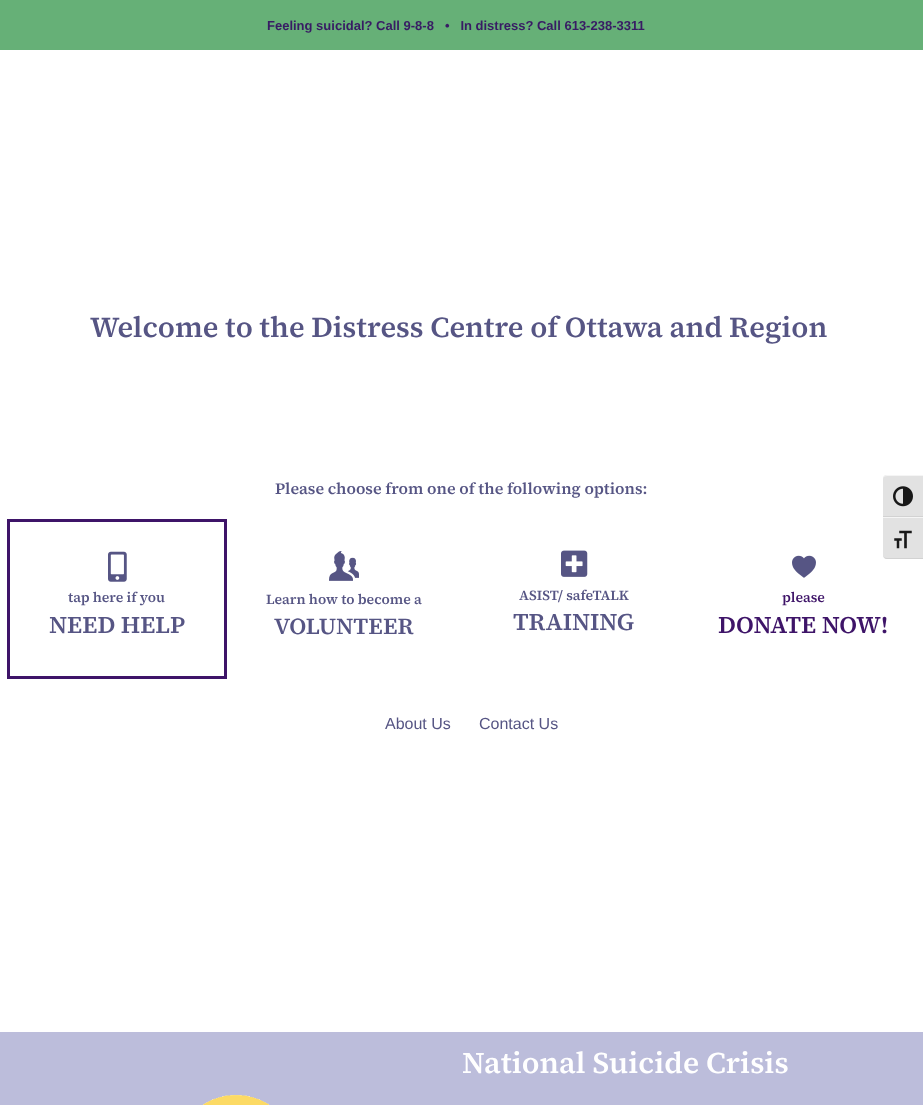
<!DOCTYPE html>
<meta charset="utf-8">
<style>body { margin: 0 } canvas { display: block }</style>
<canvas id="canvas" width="923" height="1105"></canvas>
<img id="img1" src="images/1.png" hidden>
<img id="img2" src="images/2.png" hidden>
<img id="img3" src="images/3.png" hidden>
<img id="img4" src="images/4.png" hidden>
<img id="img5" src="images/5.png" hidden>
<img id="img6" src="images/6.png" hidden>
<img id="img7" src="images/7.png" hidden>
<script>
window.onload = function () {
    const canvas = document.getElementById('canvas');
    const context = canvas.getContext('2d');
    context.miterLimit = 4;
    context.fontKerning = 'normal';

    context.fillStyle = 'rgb(255, 255, 255)';
    context.fillRect(0, 0, 923, 1105);
    context.fillStyle = 'rgb(102, 176, 119)';
    context.fillRect(0, 0, 923, 50);
    context.strokeStyle = 'rgb(62, 20, 104)';
    context.lineWidth = 3;
    context.strokeRect(8.5, 520.5, 217, 157);
    context.drawImage(document.getElementById('img1'), 108, 551, 19, 31);
    context.drawImage(document.getElementById('img2'), 329, 551, 30, 30);
    context.drawImage(document.getElementById('img3'), 561, 550, 27, 27);
    context.drawImage(document.getElementById('img4'), 792, 555, 24, 23);
    context.fillStyle = 'rgb(188, 189, 219)';
    context.fillRect(0, 1032, 923, 73);
    context.drawImage(document.getElementById('img5'), 203, 1095, 66, 10);
    context.fillStyle = 'rgb(226, 226, 226)';
    context.beginPath();
    context.roundRect(883, 475, 40, 42, [4, 0, 0, 0]);
    context.fill();
    context.fillStyle = 'rgb(245, 245, 245)';
    context.beginPath();
    context.moveTo(887, 476);
    context.lineTo(923, 476);
    context.lineTo(923, 475);
    context.lineTo(887, 475);
    context.bezierCurveTo(885, 475, 883, 477, 883, 479);
    context.bezierCurveTo(883, 477, 885, 476, 887, 476);
    context.closePath();
    context.fill();
    context.fillStyle = 'rgb(210, 210, 210)';
    context.fillRect(883, 516, 40, 1);
    context.drawImage(document.getElementById('img6'), 893, 486, 20, 21);
    context.fillStyle = 'rgb(226, 226, 226)';
    context.beginPath();
    context.roundRect(883, 517, 40, 42, [0, 0, 0, 4]);
    context.fill();
    context.fillStyle = 'rgb(245, 245, 245)';
    context.fillRect(883, 517, 40, 1);
    context.fillStyle = 'rgb(210, 210, 210)';
    context.beginPath();
    context.moveTo(923, 559);
    context.lineTo(923, 558);
    context.lineTo(887, 558);
    context.bezierCurveTo(885, 558, 883, 557, 883, 555);
    context.bezierCurveTo(883, 557, 885, 559, 887, 559);
    context.closePath();
    context.fill();
    context.drawImage(document.getElementById('img7'), 894, 530, 18, 19);
    context.font = 'bold 13px Liberation Sans';
    context.fillStyle = 'rgb(56, 27, 100)';
    context.fillText('Feeling suicidal? Call 9-8-8', 267, 30);
    context.fillText('•   In distress? Call 613-238-3311', 445, 30);
    context.font = '600 29px "Source Serif 4"';
    context.fillStyle = 'rgb(86, 85, 132)';
    context.fillText('Welcome to the Distress Centre of Ottawa and Region', 90, 337);
    context.font = '600 16px "Source Serif 4"';
    context.fillText('Please choose from one of the following options:', 275, 494);
    context.font = '600 14px "Source Serif 4"';
    context.fillText('tap here if you', 68, 602);
    context.font = '600 24px "Source Serif 4"';
    context.fillText('NEED HELP', 49, 633);
    context.font = '600 14px "Source Serif 4"';
    context.fillText('Learn how to become a', 266, 604);
    context.font = '600 23px "Source Serif 4"';
    context.fillText('VOLUNTEER', 274, 634);
    context.font = '600 14px "Source Serif 4"';
    context.fillText('ASIST/ safeTALK', 519, 600);
    context.font = '600 24px "Source Serif 4"';
    context.fillText('TRAINING', 513, 630);
    context.font = '600 14px "Source Serif 4"';
    context.fillStyle = 'rgb(62, 20, 104)';
    context.fillText('please', 782, 602);
    context.font = '600 24px "Source Serif 4"';
    context.fillText('DONATE NOW!', 718, 633);
    context.font = '16px Liberation Sans';
    context.fillStyle = 'rgb(86, 85, 132)';
    context.fillText('About Us', 385, 729);
    context.fillText('Contact Us', 479, 729);
    context.font = '600 30px "Source Serif 4"';
    context.fillStyle = 'rgb(255, 255, 255)';
    context.fillText('National Suicide Crisis', 462, 1073);
};
</script>
